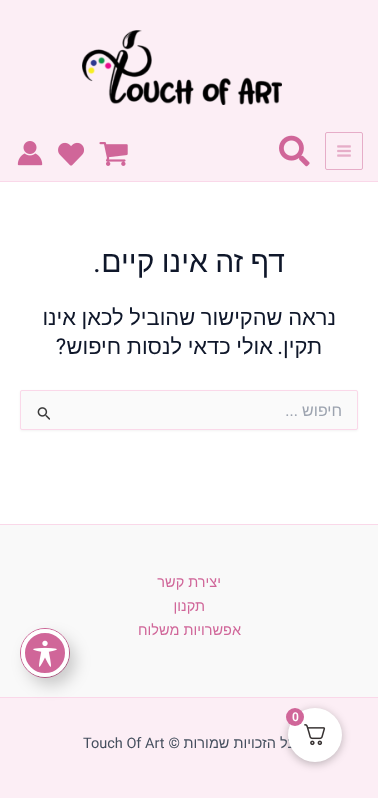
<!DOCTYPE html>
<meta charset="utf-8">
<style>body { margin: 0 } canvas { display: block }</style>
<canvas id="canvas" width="378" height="798"></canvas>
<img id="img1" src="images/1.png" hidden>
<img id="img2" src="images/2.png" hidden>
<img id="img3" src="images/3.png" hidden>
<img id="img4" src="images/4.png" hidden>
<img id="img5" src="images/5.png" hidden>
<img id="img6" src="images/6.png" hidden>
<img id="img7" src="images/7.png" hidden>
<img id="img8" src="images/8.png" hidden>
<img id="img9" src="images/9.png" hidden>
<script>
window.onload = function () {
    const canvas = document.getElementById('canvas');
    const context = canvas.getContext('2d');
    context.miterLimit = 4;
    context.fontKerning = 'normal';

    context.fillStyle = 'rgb(255, 255, 255)';
    context.fillRect(0, 0, 378, 798);
    context.fillStyle = 'rgb(252, 238, 245)';
    context.fillRect(0, 0, 378, 181);
    context.fillStyle = 'rgb(250, 216, 233)';
    context.fillRect(0, 181, 378, 1);
    context.beginPath();
    context.roundRect(325.5, 132.5, 37, 37, 1.5);
    context.strokeStyle = 'rgb(230, 173, 200)';
    context.stroke();
    context.drawImage(document.getElementById('img1'), 337, 145, 14, 12);
    context.drawImage(document.getElementById('img2'), 279, 135, 31, 32);
    context.drawImage(document.getElementById('img3'), 99, 142, 29, 24);
    context.drawImage(document.getElementById('img4'), 58, 142, 26, 24);
    context.drawImage(document.getElementById('img5'), 17, 141, 26, 25);
    context.drawImage(document.getElementById('img6'), 82, 30, 200, 75);
    context.fillStyle = 'rgba(0, 0, 0, 0.05)';
    context.filter = 'blur(1px)';
    context.beginPath();
    context.roundRect(20, 391, 338, 40, 2);
    context.fill();
    context.filter = 'none';
    context.fillStyle = 'rgb(250, 250, 250)';
    context.beginPath();
    context.roundRect(20.5, 390.5, 337, 39, 1.5);
    context.fill();
    context.strokeStyle = 'rgb(250, 216, 233)';
    context.stroke();
    context.drawImage(document.getElementById('img7'), 37, 407, 13, 13);
    context.fillStyle = 'rgb(249, 249, 249)';
    context.fillRect(0, 525, 378, 172);
    context.fillStyle = 'rgb(250, 216, 233)';
    context.fillRect(0, 524, 378, 1);
    context.fillStyle = 'rgb(252, 238, 245)';
    context.fillRect(0, 698, 378, 100);
    context.fillStyle = 'rgb(250, 216, 233)';
    context.fillRect(0, 697, 378, 1);
    context.beginPath();
    context.arc(45, 653, 24.5, 0, 2 * Math.PI);
    context.strokeStyle = 'rgb(208, 102, 153)';
    context.stroke();
    context.fillStyle = 'rgba(0, 0, 0, 0.2)';
    context.filter = 'blur(8px)';
    context.beginPath();
    context.roundRect(27, 637, 48, 48, 24);
    context.fill();
    context.filter = 'none';
    context.fillStyle = 'rgb(208, 102, 153)';
    context.beginPath();
    context.arc(45, 653, 22, 0, 2 * Math.PI);
    context.fill();
    context.strokeStyle = 'rgb(255, 255, 255)';
    context.lineWidth = 4;
    context.stroke();
    context.drawImage(document.getElementById('img8'), 33, 640, 24, 27);
    context.fillStyle = 'rgba(0, 0, 0, 0.25)';
    context.filter = 'blur(4px)';
    context.beginPath();
    context.roundRect(288, 710, 54, 54, 27);
    context.fill();
    context.filter = 'none';
    context.wordSpacing = '-1px';
    context.direction = 'rtl';
    context.font = '30px Liberation Sans';
    context.fillStyle = 'rgb(15, 23, 42)';
    context.fillText('דף זה אינו קיים', 285, 272);
    context.wordSpacing = '0px';
    context.font = '30px Roboto';
    context.fillText('.', 101, 272);
    context.wordSpacing = '-0.5px';
    context.font = '21.9px Liberation Sans';
    context.fillText('נראה שהקישור שהוביל לכאן אינו', 336, 325);
    context.wordSpacing = '0px';
    context.fillText('תקין', 322, 354);
    context.font = '21.9px Roboto';
    context.fillText('.', 283, 354);
    context.wordSpacing = '-0.5px';
    context.font = '21.9px Liberation Sans';
    context.fillText('אולי כדאי לנסות חיפוש', 273, 354);
    context.wordSpacing = '0px';
    context.font = '21.9px Roboto';
    context.fillText('?', 66, 354);
    context.font = '16px Liberation Sans';
    context.fillStyle = 'rgb(156, 163, 175)';
    context.fillText('חיפוש', 342, 416);
    context.font = '16px Roboto';
    context.fillText('...', 298, 416);
    context.font = '14.5px Liberation Sans';
    context.fillStyle = 'rgb(208, 102, 153)';
    context.fillText('יצירת קשר', 221, 587);
    context.fillText('תקנון', 205, 611);
    context.fillText('אפשרויות משלוח', 241, 635);
    context.fillStyle = 'rgb(69, 79, 94)';
    context.fillText('כל הזכויות שמורות', 295, 748);
    context.font = '14.5px Roboto';
    context.fillText('©', 180, 748);
    context.direction = 'ltr';
    context.fillText('Touch Of Art', 83, 748);
    context.fillStyle = 'rgb(255, 255, 255)';
    context.beginPath();
    context.arc(315, 735, 27, 0, 2 * Math.PI);
    context.fill();
    context.drawImage(document.getElementById('img9'), 304, 724, 22, 22);
    context.fillStyle = 'rgb(208, 102, 153)';
    context.beginPath();
    context.arc(295, 717, 9, 0, 2 * Math.PI);
    context.fill();
    context.font = '600 12px Roboto';
    context.fillStyle = 'rgb(255, 255, 255)';
    context.fillText('0', 292, 721);
};
</script>
